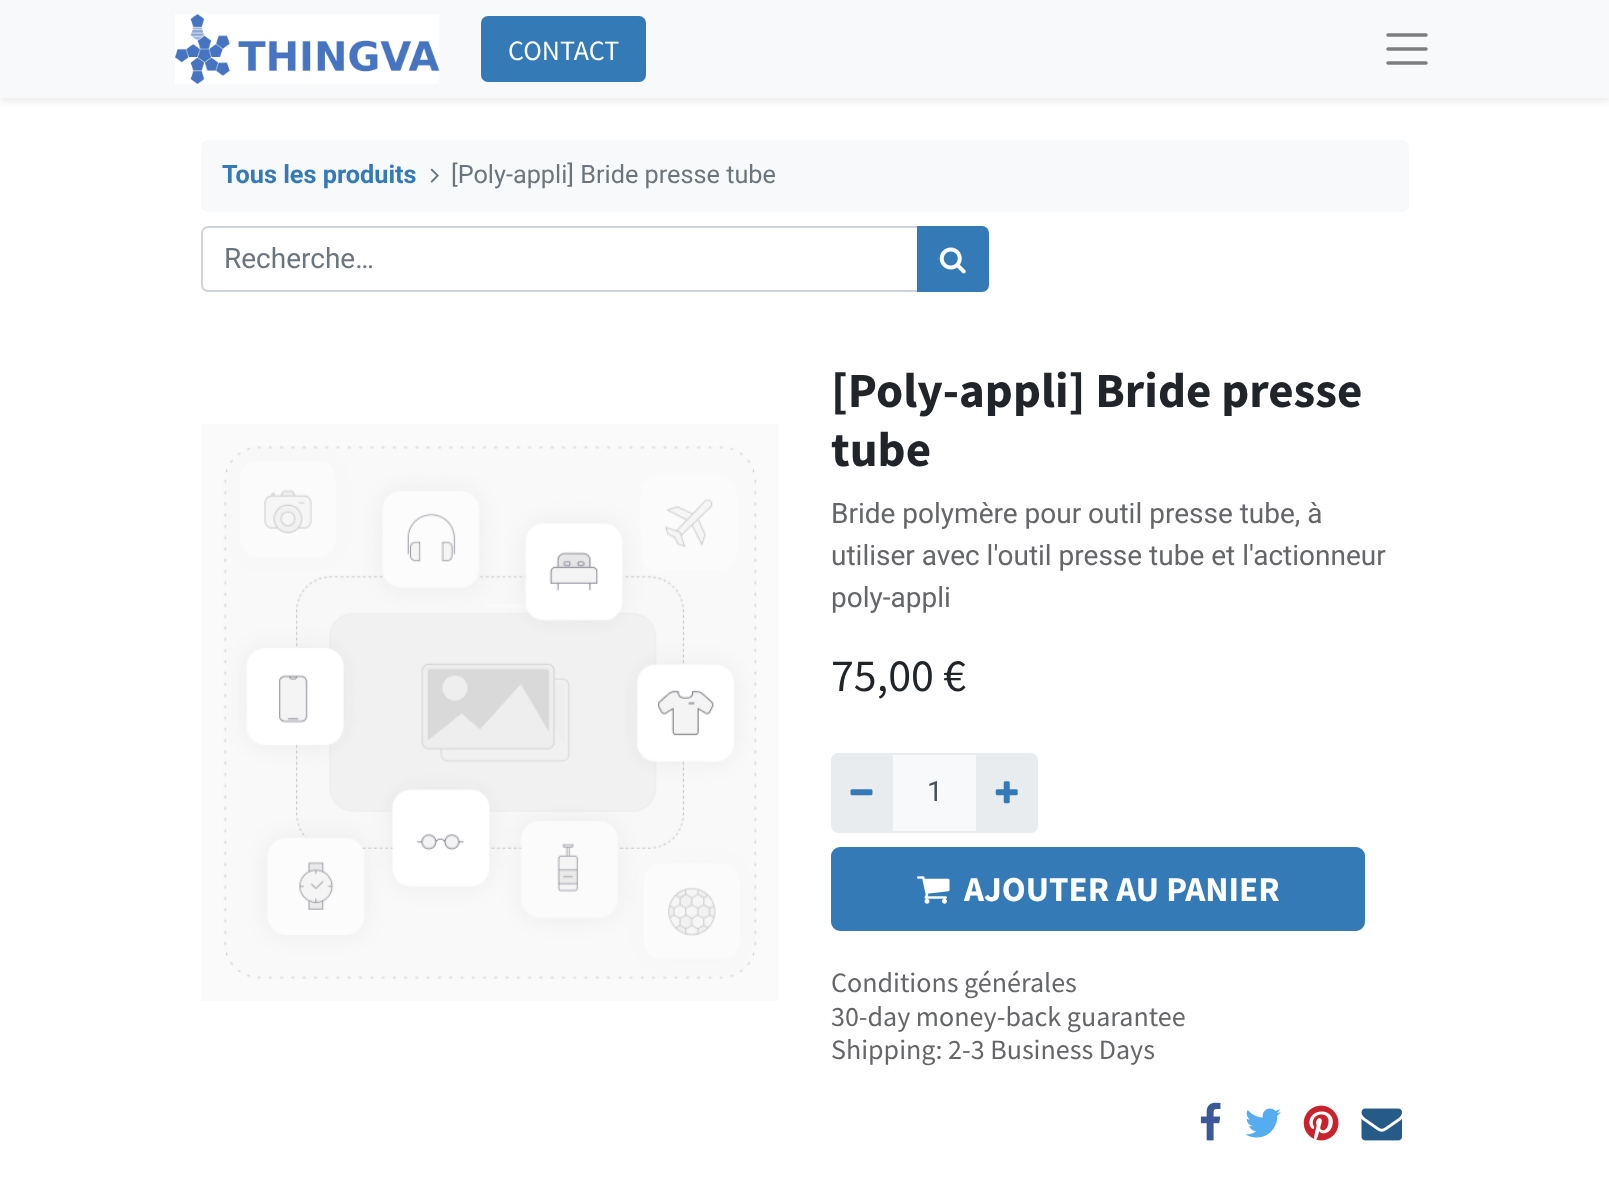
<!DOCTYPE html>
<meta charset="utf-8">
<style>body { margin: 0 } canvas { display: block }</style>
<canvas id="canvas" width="1609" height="1187"></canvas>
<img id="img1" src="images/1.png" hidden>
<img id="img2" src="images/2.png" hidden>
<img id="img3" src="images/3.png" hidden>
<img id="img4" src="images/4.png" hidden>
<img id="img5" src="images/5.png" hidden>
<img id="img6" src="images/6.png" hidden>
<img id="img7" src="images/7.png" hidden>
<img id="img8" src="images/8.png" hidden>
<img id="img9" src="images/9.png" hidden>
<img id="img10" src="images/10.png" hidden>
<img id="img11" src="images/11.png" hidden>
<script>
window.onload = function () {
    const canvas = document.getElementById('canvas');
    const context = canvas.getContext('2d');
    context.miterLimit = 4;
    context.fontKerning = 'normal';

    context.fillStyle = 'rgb(255, 255, 255)';
    context.fillRect(0, 0, 1609, 1187);
    context.fillStyle = 'rgba(0, 0, 0, 0.07)';
    context.filter = 'blur(3.5px)';
    context.beginPath();
    context.rect(0, 4, 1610, 98);
    context.fill();
    context.filter = 'none';
    context.fillStyle = 'rgb(248, 249, 250)';
    context.fillRect(0, 0, 1609, 98);
    context.drawImage(document.getElementById('img1'), 175, 14, 265, 70);
    context.fillStyle = 'rgb(51, 122, 183)';
    context.beginPath();
    context.roundRect(482, 17, 163, 64, 6);
    context.fill();
    context.strokeStyle = 'rgb(51, 122, 183)';
    context.lineWidth = 2;
    context.stroke();
    context.beginPath();
    context.moveTo(1388, 35);
    context.lineTo(1426, 35);
    context.moveTo(1388, 49);
    context.lineTo(1426, 49);
    context.moveTo(1388, 63);
    context.lineTo(1426, 63);
    context.strokeStyle = 'rgb(124, 125, 125)';
    context.lineWidth = 3.5;
    context.lineCap = 'round';
    context.stroke();
    context.fillStyle = 'rgb(248, 249, 250)';
    context.beginPath();
    context.roundRect(201, 140, 1208, 72, 7);
    context.fill();
    context.drawImage(document.getElementById('img2'), 430, 168, 9, 15);
    context.beginPath();
    context.roundRect(202, 227, 716, 64, [6, 0, 0, 6]);
    context.strokeStyle = 'rgb(206, 212, 218)';
    context.lineWidth = 2;
    context.stroke();
    context.fillStyle = 'rgb(51, 122, 183)';
    context.beginPath();
    context.roundRect(918, 227, 70, 64, [0, 6, 6, 0]);
    context.fill();
    context.strokeStyle = 'rgb(51, 122, 183)';
    context.stroke();
    context.drawImage(document.getElementById('img3'), 939, 247, 27, 27);
    context.drawImage(document.getElementById('img4'), 201, 424, 578, 577);
    context.fillStyle = 'rgb(248, 249, 250)';
    context.beginPath();
    context.rect(892, 754, 85, 78);
    context.fill();
    context.strokeStyle = 'rgb(233, 236, 239)';
    context.stroke();
    context.fillStyle = 'rgb(233, 236, 239)';
    context.beginPath();
    context.roundRect(831, 753, 62, 80, [7, 0, 0, 7]);
    context.fill();
    context.drawImage(document.getElementById('img5'), 850, 789, 23, 7);
    context.beginPath();
    context.roundRect(977, 753, 61, 80, [0, 7, 7, 0]);
    context.fill();
    context.drawImage(document.getElementById('img6'), 995, 781, 23, 23);
    context.fillStyle = 'rgb(51, 122, 183)';
    context.beginPath();
    context.roundRect(832, 848, 532, 82, 8);
    context.fill();
    context.strokeStyle = 'rgb(51, 122, 183)';
    context.stroke();
    context.drawImage(document.getElementById('img7'), 917, 876, 33, 28);
    context.drawImage(document.getElementById('img8'), 1200, 1102, 21, 39);
    context.drawImage(document.getElementById('img9'), 1245, 1108, 36, 30);
    context.drawImage(document.getElementById('img10'), 1303, 1105, 36, 36);
    context.drawImage(document.getElementById('img11'), 1361, 1108, 42, 33);
    context.font = '28px Source Sans Pro';
    context.fillStyle = 'rgb(255, 255, 255)';
    context.fillText('CONTACT', 508, 60);
    context.font = 'bold 25.25px Roboto';
    context.fillStyle = 'rgb(51, 122, 183)';
    context.fillText('Tous les produits', 222, 183);
    context.font = '25.25px Roboto';
    context.fillStyle = 'rgb(108, 117, 125)';
    context.fillText('[Poly-appli] Bride presse tube', 451, 183);
    context.font = '28px Roboto';
    context.fillText('Recherche…', 224, 268);
    context.font = 'bold 49px Source Sans Pro';
    context.fillStyle = 'rgb(33, 37, 41)';
    context.fillText('[Poly-appli] Bride presse', 831, 407);
    context.fillText('tube', 831, 466);
    context.font = '28px Roboto';
    context.fillStyle = 'rgb(100, 102, 105)';
    context.fillText('Bride polymère pour outil presse tube, à', 831, 523);
    context.fillText('utiliser avec l\'outil presse tube et l\'actionneur', 831, 565);
    context.fillText('poly-appli', 831, 607);
    context.font = '46px Source Sans Pro';
    context.fillStyle = 'rgb(33, 37, 41)';
    context.fillText('75,00 €', 831, 691);
    context.font = '28px Roboto';
    context.fillStyle = 'rgb(73, 80, 87)';
    context.fillText('1', 927, 801);
    context.font = 'bold 35px Source Sans Pro';
    context.fillStyle = 'rgb(255, 255, 255)';
    context.fillText('AJOUTER AU PANIER', 964, 901);
    context.font = '28px Source Sans Pro';
    context.fillStyle = 'rgb(100, 102, 105)';
    context.fillText('Conditions générales', 831, 992);
    context.fillText('30-day money-back guarantee', 831, 1026);
    context.fillText('Shipping: 2-3 Business Days', 831, 1059);
};
</script>
